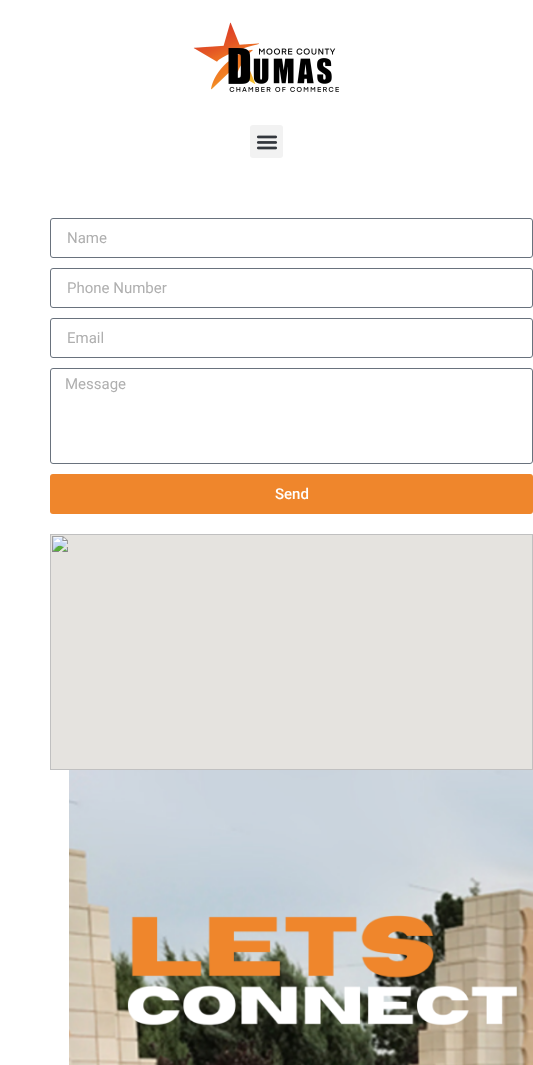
<!DOCTYPE html>
<meta charset="utf-8">
<style>body { margin: 0 } canvas { display: block }</style>
<canvas id="canvas" width="533" height="1065"></canvas>
<img id="img1" src="images/1.png" hidden>
<img id="img2" src="images/2.png" hidden>
<img id="img3" src="images/3.png" hidden>
<img id="img4" src="images/4.png" hidden>
<script>
window.onload = function () {
    const canvas = document.getElementById('canvas');
    const context = canvas.getContext('2d');
    context.miterLimit = 4;
    context.fontKerning = 'normal';

    context.fillStyle = 'rgb(255, 255, 255)';
    context.fillRect(0, 0, 533, 1065);
    context.drawImage(document.getElementById('img1'), 193, 22, 146, 70);
    context.fillStyle = 'rgb(242, 242, 242)';
    context.beginPath();
    context.roundRect(250, 125, 33, 33, 3);
    context.fill();
    context.drawImage(document.getElementById('img2'), 256, 135, 22, 15);
    context.beginPath();
    context.roundRect(50.5, 218.5, 482, 39, 2.5);
    context.strokeStyle = 'rgb(105, 114, 125)';
    context.stroke();
    context.beginPath();
    context.roundRect(50.5, 268.5, 482, 39, 2.5);
    context.stroke();
    context.beginPath();
    context.roundRect(50.5, 318.5, 482, 39, 2.5);
    context.stroke();
    context.beginPath();
    context.roundRect(50.5, 368.5, 482, 95, 2.5);
    context.stroke();
    context.fillStyle = 'rgb(239, 134, 44)';
    context.beginPath();
    context.roundRect(50, 474, 483, 40, 3);
    context.fill();
    context.drawImage(document.getElementById('img3'), 50, 534, 483, 236);
    context.drawImage(document.getElementById('img4'), 69, 770, 464, 295);
    context.font = '15px Roboto';
    context.fillStyle = 'rgb(175, 175, 175)';
    context.fillText('Name', 67, 243);
    context.fillText('Phone Number', 67, 293);
    context.fillText('Email', 67, 343);
    context.fillText('Message', 65, 389);
    context.font = '500 15px Roboto';
    context.fillStyle = 'rgb(255, 255, 255)';
    context.fillText('Send', 275, 499);
};
</script>
